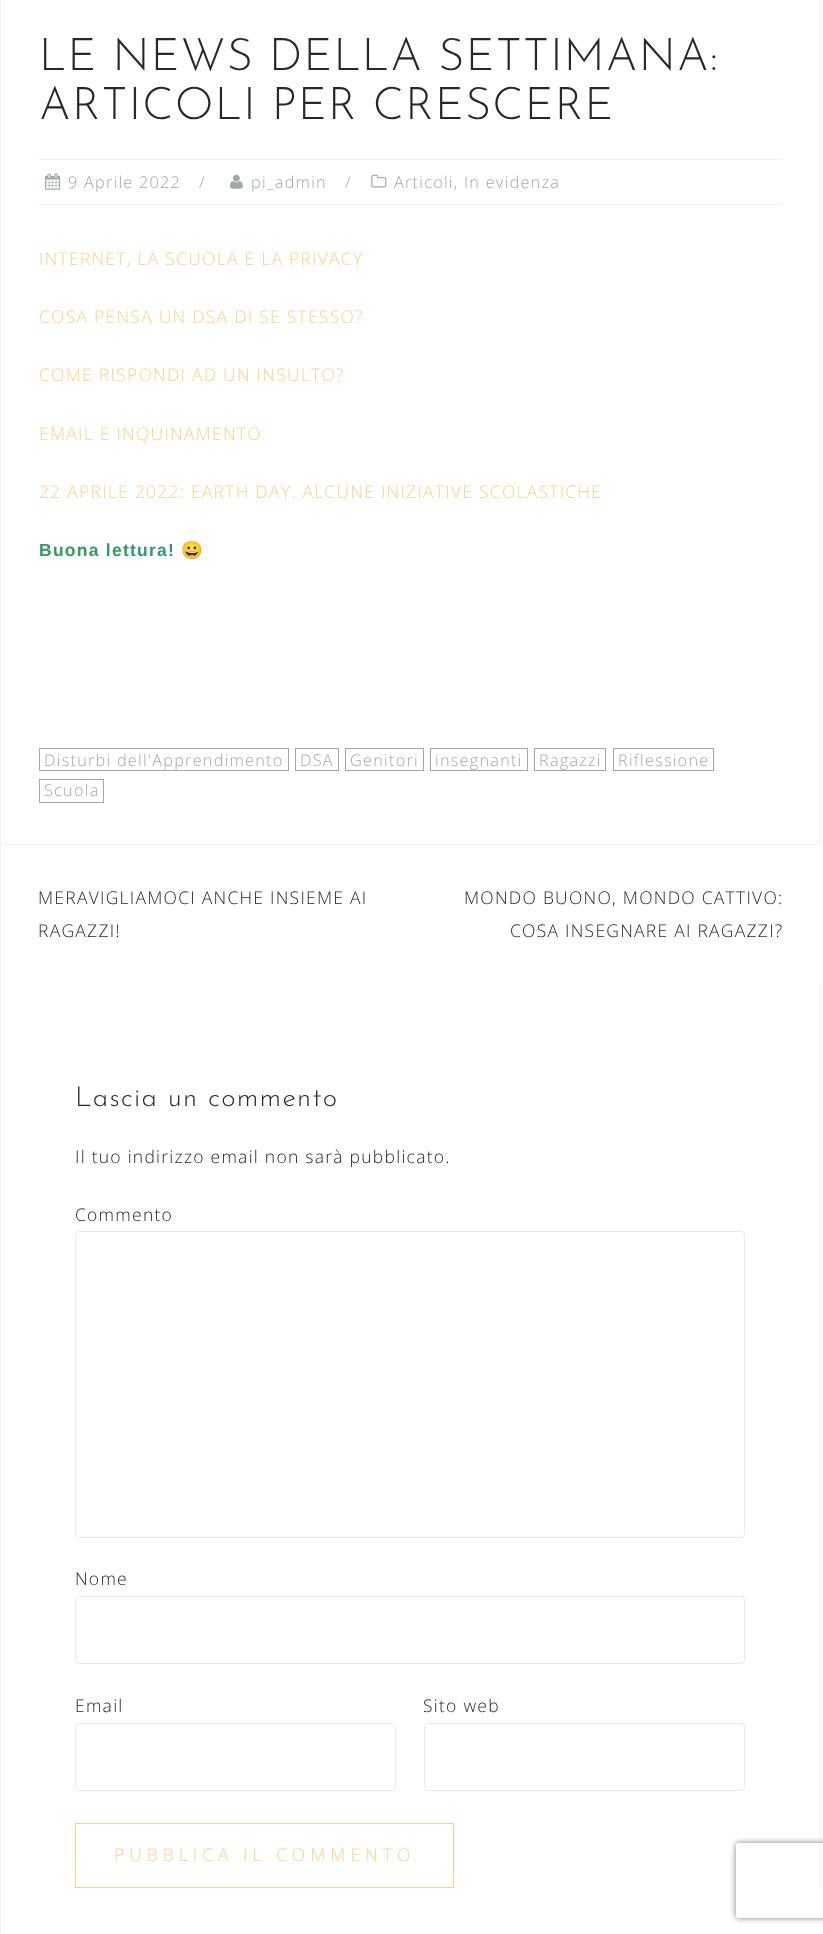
<!DOCTYPE html>
<meta charset="utf-8">
<style>body { margin: 0 } canvas { display: block }</style>
<canvas id="canvas" width="823" height="1934"></canvas>
<img id="img1" src="images/1.png" hidden>
<img id="img2" src="images/2.png" hidden>
<img id="img3" src="images/3.png" hidden>
<script>
window.onload = function () {
    const canvas = document.getElementById('canvas');
    const context = canvas.getContext('2d');
    context.miterLimit = 4;
    context.fontKerning = 'normal';

    context.fillStyle = 'rgb(255, 255, 255)';
    context.fillRect(0, 0, 823, 1934);
    context.fillStyle = 'rgb(242, 242, 243)';
    context.fillRect(0, 845, 1, 1089);
    context.strokeStyle = 'rgb(242, 242, 243)';
    context.strokeRect(0.5, -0.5, 820, 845);
    context.fillRect(39, 159, 744, 1);
    context.fillRect(39, 204, 744, 1);
    context.drawImage(document.getElementById('img1'), 45, 173, 16, 17);
    context.drawImage(document.getElementById('img2'), 230, 174, 13, 15);
    context.drawImage(document.getElementById('img3'), 371, 174, 16, 14);
    context.strokeStyle = 'rgb(160, 168, 171)';
    context.strokeRect(39.5, 748.5, 249, 22);
    context.strokeRect(295.5, 748.5, 43, 22);
    context.strokeRect(345.5, 748.5, 78, 22);
    context.strokeRect(430.5, 748.5, 97, 22);
    context.strokeRect(534.5, 748.5, 71, 22);
    context.strokeRect(613.5, 748.5, 100, 22);
    context.strokeRect(39.5, 779.5, 64, 23);
    context.fillRect(820, 985, 1, 903);
    context.beginPath();
    context.roundRect(75.5, 1231.5, 669, 306, 3.5);
    context.strokeStyle = 'rgb(235, 235, 235)';
    context.stroke();
    context.beginPath();
    context.roundRect(75.5, 1596.5, 669, 67, 3.5);
    context.stroke();
    context.beginPath();
    context.roundRect(75.5, 1723.5, 320, 67, 3.5);
    context.stroke();
    context.beginPath();
    context.roundRect(424.5, 1723.5, 320, 67, 3.5);
    context.stroke();
    context.strokeStyle = 'rgb(252, 208, 136)';
    context.strokeRect(75.5, 1823.5, 378, 64);
    context.save();
    context.beginPath();
    context.moveTo(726, 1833);
    context.lineTo(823, 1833);
    context.lineTo(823, 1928);
    context.lineTo(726, 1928);
    context.closePath();
    context.moveTo(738.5, 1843);
    context.lineTo(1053.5, 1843);
    context.bezierCurveTo(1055, 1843, 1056, 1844, 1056, 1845.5);
    context.lineTo(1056, 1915.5);
    context.bezierCurveTo(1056, 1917, 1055, 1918, 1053.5, 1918);
    context.lineTo(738.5, 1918);
    context.bezierCurveTo(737, 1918, 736, 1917, 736, 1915.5);
    context.lineTo(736, 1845.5);
    context.bezierCurveTo(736, 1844, 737, 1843, 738.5, 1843);
    context.closePath();
    context.clip('evenodd');
    context.fillStyle = 'rgb(128, 128, 128)';
    context.filter = 'blur(3px)';
    context.beginPath();
    context.roundRect(736, 1843, 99, 75, 2.5);
    context.fill();
    context.filter = 'none';
    context.restore();
    context.letterSpacing = '1.25px';
    context.font = '100 45px Josefin Sans';
    context.fillStyle = 'rgb(40, 40, 40)';
    context.fillText('LE NEWS DELLA SETTIMANA:', 39, 70);
    context.fillText('ARTICOLI PER CRESCERE', 39, 119);
    context.font = '300 16.25px Open Sans';
    context.fillStyle = 'rgb(160, 168, 171)';
    context.fillText('9 Aprile 2022', 68, 188);
    context.fillText('/', 199, 188);
    context.fillText('pi_admin', 251, 188);
    context.fillText('/', 345, 188);
    context.fillText('Articoli, In evidenza', 394, 188);
    context.font = '300 17.5px Open Sans';
    context.fillStyle = 'rgb(252, 208, 136)';
    context.fillText('INTERNET, LA SCUOLA E LA PRIVACY', 39, 265);
    context.fillText('COSA PENSA UN DSA DI SE STESSO?', 39, 323);
    context.fillText('COME RISPONDI AD UN INSULTO?', 39, 381);
    context.fillText('EMAIL E INQUINAMENTO', 39, 440);
    context.fillText('22 APRILE 2022: EARTH DAY. ALCUNE INIZIATIVE SCOLASTICHE', 39, 498);
    context.font = 'bold 17.5px Liberation Sans';
    context.fillStyle = 'rgb(51, 153, 102)';
    context.fillText('Buona lettura!', 39, 556);
    context.font = '17.5px Noto Color Emoji';
    context.fillText('😀', 181, 556);
    context.font = '300 16.25px Open Sans';
    context.fillStyle = 'rgb(160, 168, 171)';
    context.fillText('Disturbi dell\'Apprendimento', 44, 766);
    context.fillText('DSA', 300, 766);
    context.fillText('Genitori', 350, 766);
    context.fillText('insegnanti', 435, 766);
    context.fillText('Ragazzi', 539, 766);
    context.fillText('Riflessione', 618, 766);
    context.fillText('Scuola', 44, 796);
    context.font = '300 17.5px Open Sans';
    context.fillStyle = 'rgb(40, 40, 40)';
    context.fillText('MERAVIGLIAMOCI ANCHE INSIEME AI', 38, 904);
    context.fillText('RAGAZZI!', 38, 937);
    context.fillText('MONDO BUONO, MONDO CATTIVO:', 464, 904);
    context.fillText('COSA INSEGNARE AI RAGAZZI?', 510, 937);
    context.font = '100 27.5px Josefin Sans';
    context.fillText('Lascia un commento', 75, 1106);
    context.font = '300 17.5px Open Sans';
    context.fillText('Il tuo indirizzo email non sarà pubblicato.', 75, 1163);
    context.fillText('Commento', 75, 1221);
    context.fillText('Nome', 75, 1585);
    context.fillText('Email', 75, 1712);
    context.fillText('Sito web', 423, 1712);
    context.letterSpacing = '5px';
    context.fillStyle = 'rgb(252, 208, 136)';
    context.fillText('PUBBLICA IL COMMENTO', 114, 1861);
};
</script>
